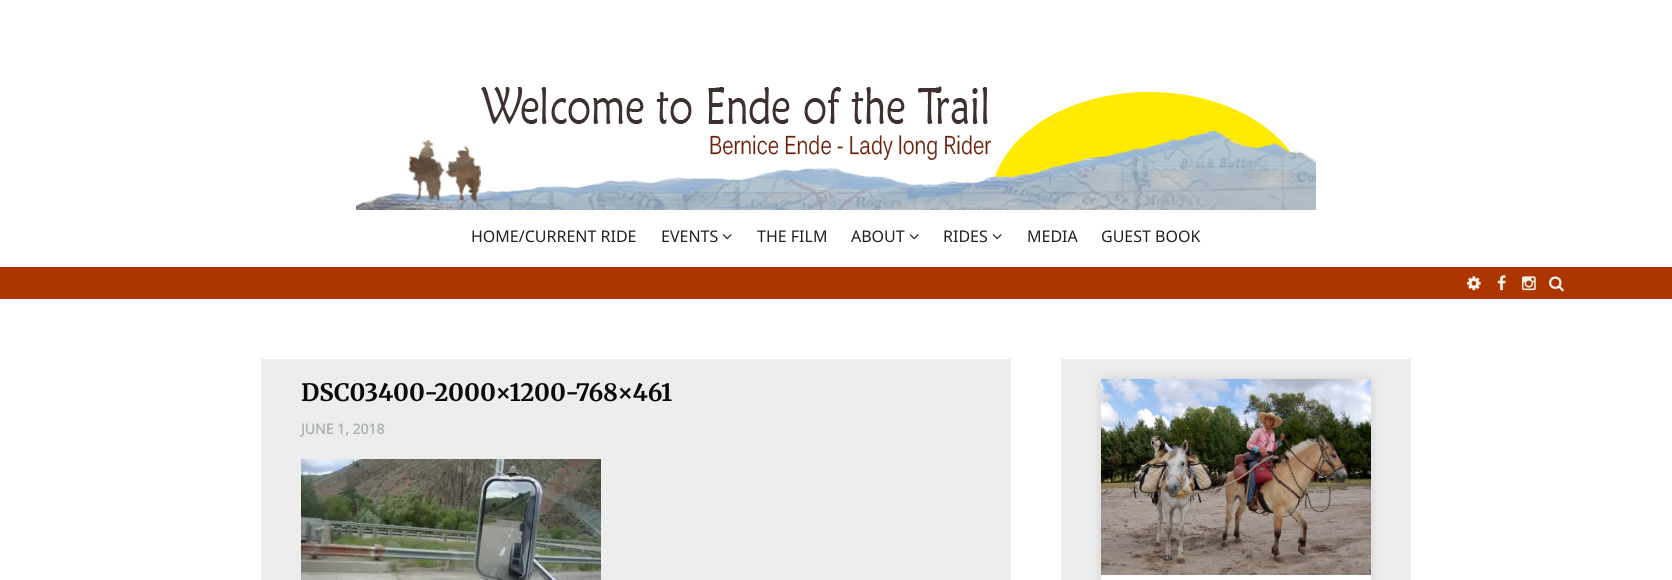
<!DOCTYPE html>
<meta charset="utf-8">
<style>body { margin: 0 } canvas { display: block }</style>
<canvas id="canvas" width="1672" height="580"></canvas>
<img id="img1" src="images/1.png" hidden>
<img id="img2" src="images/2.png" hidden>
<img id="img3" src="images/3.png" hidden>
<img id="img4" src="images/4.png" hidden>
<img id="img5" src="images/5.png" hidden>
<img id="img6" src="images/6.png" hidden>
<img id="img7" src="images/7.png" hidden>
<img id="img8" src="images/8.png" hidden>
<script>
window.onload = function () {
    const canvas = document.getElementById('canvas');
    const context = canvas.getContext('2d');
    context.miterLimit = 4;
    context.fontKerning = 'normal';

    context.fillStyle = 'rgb(255, 255, 255)';
    context.fillRect(0, 0, 1672, 580);
    context.drawImage(document.getElementById('img1'), 356, 86, 960, 124);
    context.drawImage(document.getElementById('img2'), 722, 234, 10, 6);
    context.drawImage(document.getElementById('img2'), 909, 234, 10, 6);
    context.drawImage(document.getElementById('img2'), 992, 234, 10, 6);
    context.fillStyle = 'rgb(173, 54, 0)';
    context.fillRect(0, 267, 1672, 32);
    context.drawImage(document.getElementById('img3'), 1467, 276, 14, 15);
    context.drawImage(document.getElementById('img4'), 1497, 275, 9, 16);
    context.drawImage(document.getElementById('img5'), 1522, 276, 14, 15);
    context.drawImage(document.getElementById('img6'), 1549, 276, 15, 16);
    context.fillStyle = 'rgb(237, 237, 237)';
    context.fillRect(261, 359, 750, 221);
    context.drawImage(document.getElementById('img7'), 301, 459, 300, 121);
    context.fillRect(1061, 359, 350, 221);
    context.fillStyle = 'rgba(0, 0, 0, 0.12)';
    context.filter = 'blur(6px)';
    context.beginPath();
    context.rect(1101, 379, 270, 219);
    context.fill();
    context.filter = 'none';
    context.fillStyle = 'rgb(255, 255, 255)';
    context.fillRect(1101, 575, 270, 5);
    context.drawImage(document.getElementById('img8'), 1101, 379, 270, 196);
    context.font = '16px Noto Sans';
    context.fillStyle = 'rgb(34, 34, 34)';
    context.fillText('HOME/CURRENT RIDE', 471, 242);
    context.fillText('EVENTS', 661, 242);
    context.fillText('THE FILM', 757, 242);
    context.fillText('ABOUT', 851, 242);
    context.fillText('RIDES', 943, 242);
    context.fillText('MEDIA', 1027, 242);
    context.fillText('GUEST BOOK', 1101, 242);
    context.font = 'bold 24px Merriweather';
    context.fillStyle = 'rgb(10, 10, 10)';
    context.fillText('DSC03400-2000×1200-768×461', 301, 401);
    context.font = 'bold 14px Noto Sans';
    context.fillStyle = 'rgb(173, 179, 179)';
    context.fillText('JUNE 1, 2018', 301, 434);
};
</script>
